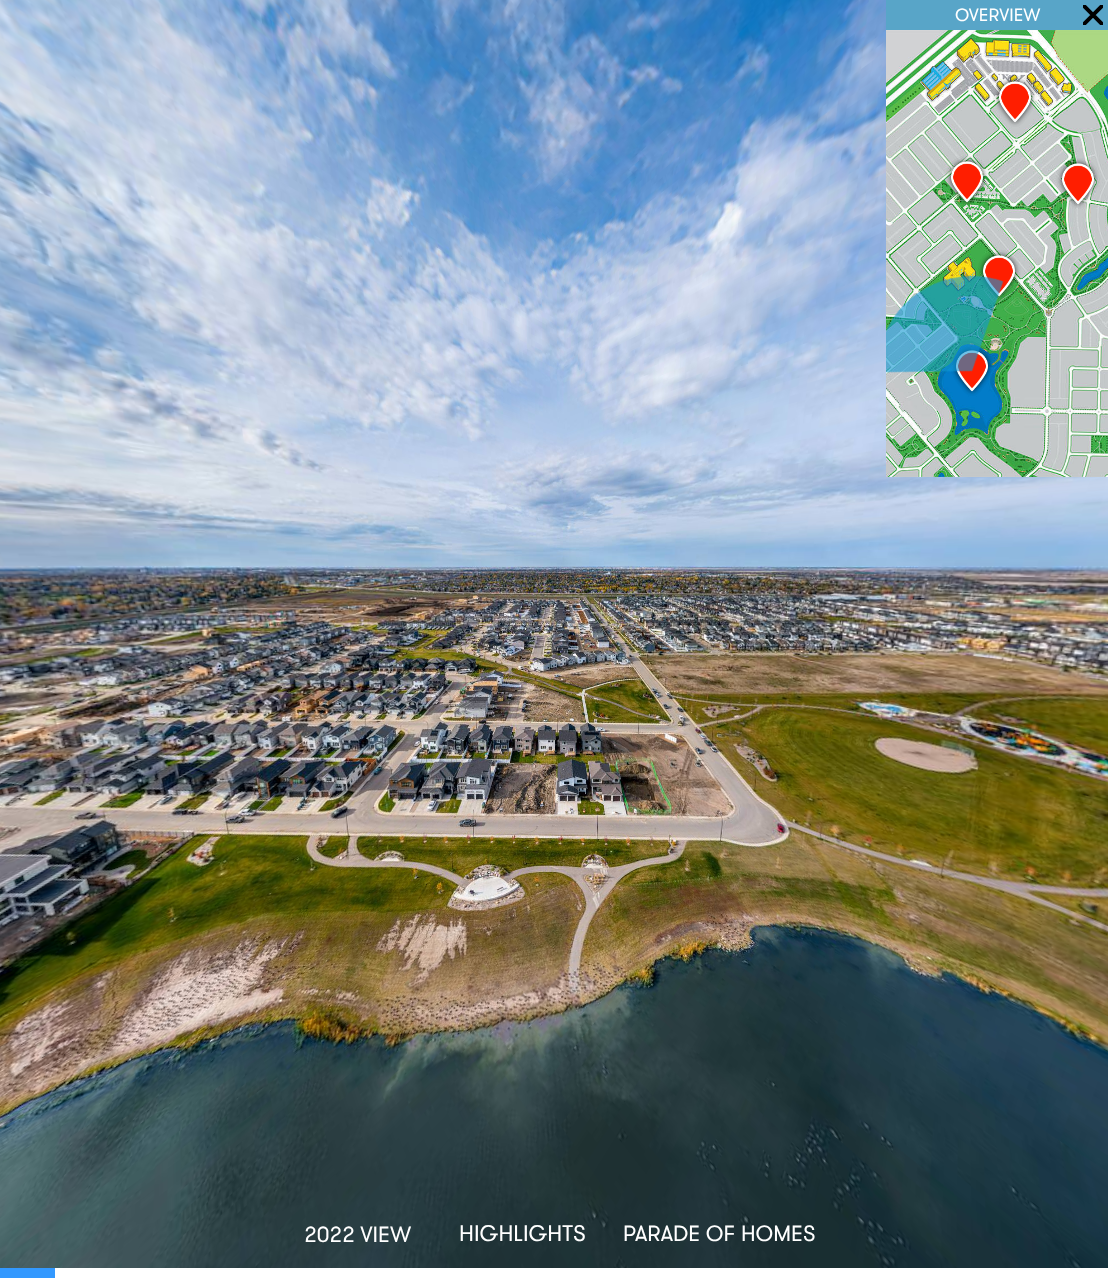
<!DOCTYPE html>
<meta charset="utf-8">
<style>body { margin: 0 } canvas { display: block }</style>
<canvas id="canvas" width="1108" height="1278"></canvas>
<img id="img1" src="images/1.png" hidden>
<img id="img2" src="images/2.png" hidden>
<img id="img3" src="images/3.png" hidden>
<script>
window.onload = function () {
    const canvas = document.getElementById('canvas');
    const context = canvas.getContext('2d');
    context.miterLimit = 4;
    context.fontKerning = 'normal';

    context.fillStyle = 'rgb(255, 255, 255)';
    context.fillRect(0, 0, 1108, 1278);
    context.drawImage(document.getElementById('img1'), 0, 0, 1108, 1268);
    context.fillStyle = 'rgb(51, 153, 255)';
    context.fillRect(0, 1268, 55, 10);
    context.fillStyle = 'rgb(88, 165, 200)';
    context.fillRect(886, 0, 222, 30);
    context.drawImage(document.getElementById('img2'), 1083, 5, 20, 20);
    context.drawImage(document.getElementById('img3'), 886, 30, 222, 447);
    context.font = '17.75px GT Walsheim';
    context.fillStyle = 'rgb(255, 255, 255)';
    context.fillText('OVERVIEW', 955, 21);
    context.font = '22px GT Walsheim';
    context.fillText('2022 VIEW', 304, 1242);
    context.font = '22.5px GT Walsheim';
    context.fillText('HIGHLIGHTS', 459, 1241);
    context.font = '22px GT Walsheim';
    context.fillText('PARADE OF HOMES', 623, 1241);
};
</script>
